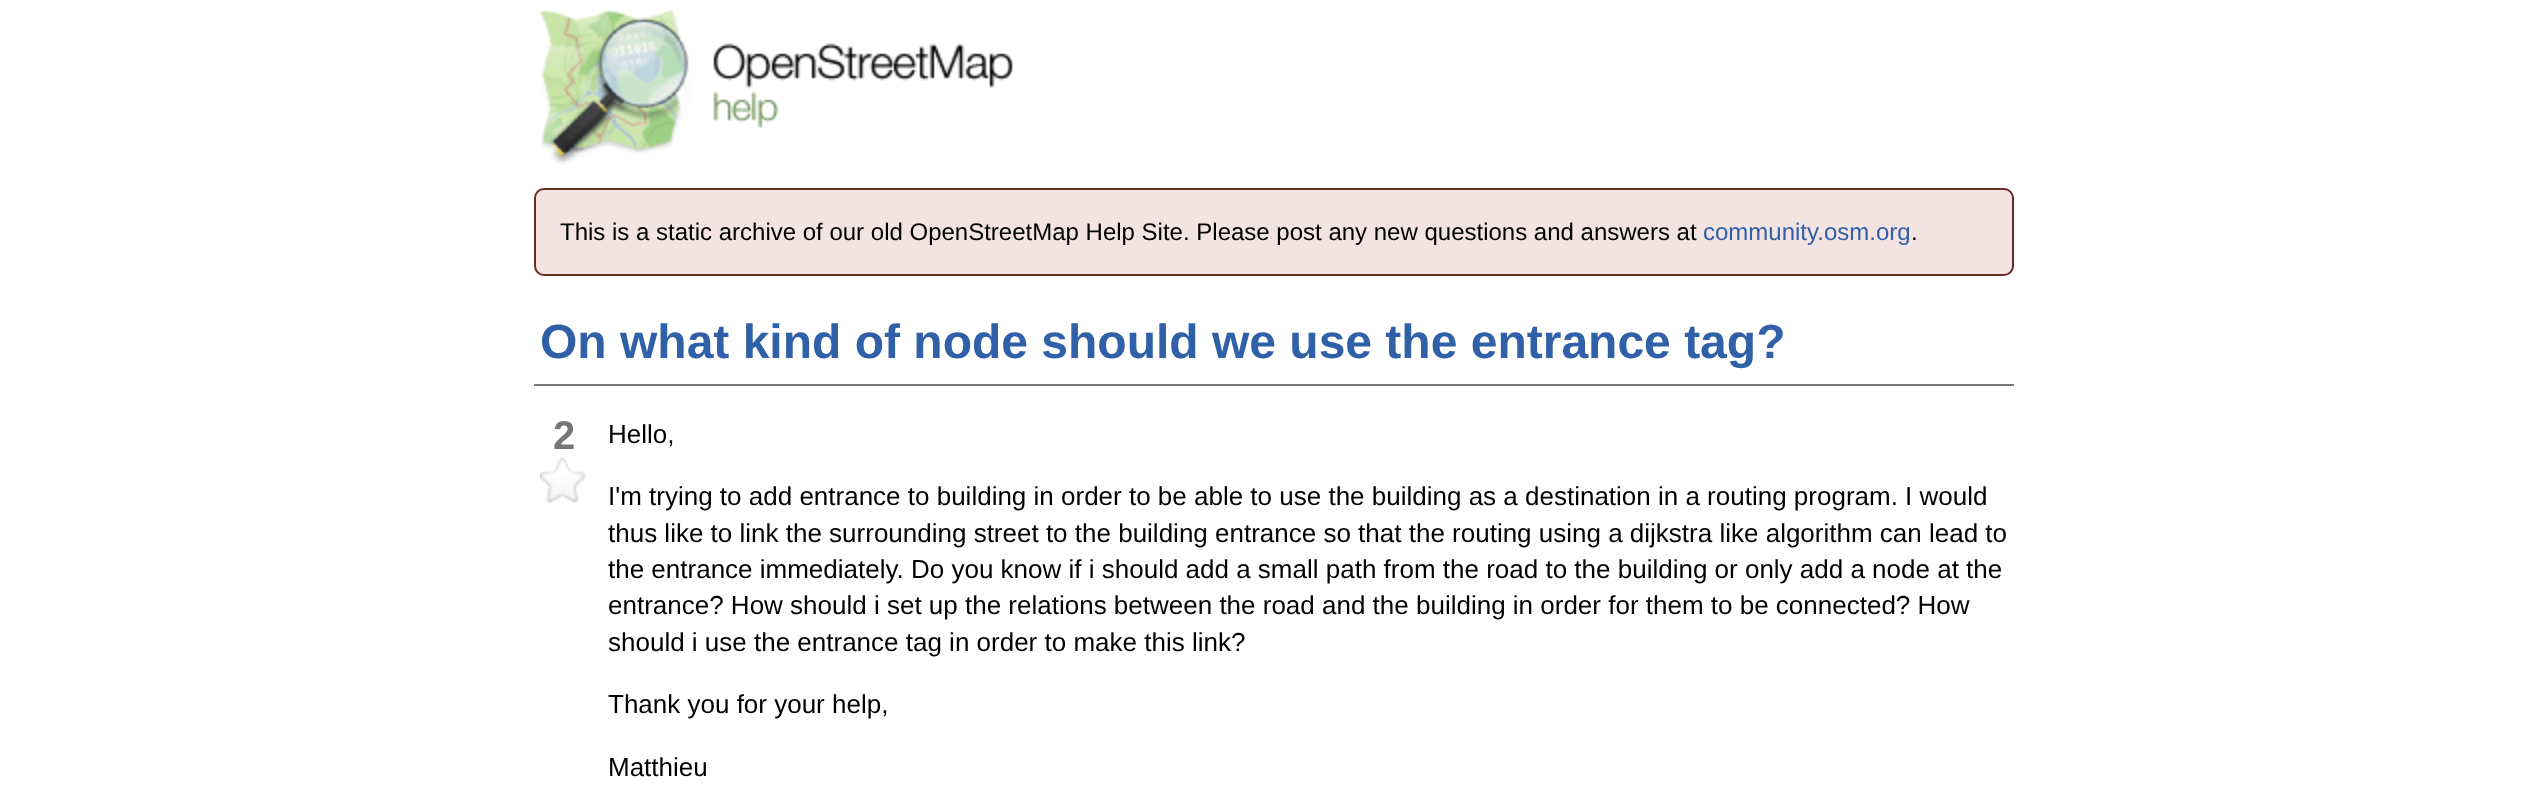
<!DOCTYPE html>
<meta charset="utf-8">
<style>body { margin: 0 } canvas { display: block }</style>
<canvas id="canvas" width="2547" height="797"></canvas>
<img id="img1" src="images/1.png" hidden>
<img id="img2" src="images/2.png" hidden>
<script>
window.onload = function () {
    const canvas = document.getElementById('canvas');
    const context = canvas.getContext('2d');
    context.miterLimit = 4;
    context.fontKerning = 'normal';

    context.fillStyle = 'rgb(255, 255, 255)';
    context.fillRect(0, 0, 2547, 797);
    context.drawImage(document.getElementById('img1'), 539, 10, 474, 155);
    context.fillStyle = 'rgb(243, 227, 225)';
    context.beginPath();
    context.roundRect(535, 189, 1478, 86, 9);
    context.fill();
    context.strokeStyle = 'rgb(107, 43, 40)';
    context.lineWidth = 2;
    context.stroke();
    context.fillStyle = 'rgb(119, 119, 119)';
    context.fillRect(534, 384, 1480, 2);
    context.drawImage(document.getElementById('img2'), 540, 458, 47, 45);
    context.font = '24px Liberation Sans';
    context.fillStyle = 'rgb(0, 0, 0)';
    context.fillText('This is a static archive of our old OpenStreetMap Help Site. Please post any new questions and answers at', 560, 240);
    context.fillStyle = 'rgb(48, 96, 168)';
    context.fillText('community.osm.org', 1703, 240);
    context.fillStyle = 'rgb(0, 0, 0)';
    context.fillText('.', 1911, 240);
    context.font = 'bold 48px Liberation Sans';
    context.fillStyle = 'rgb(48, 96, 168)';
    context.fillText('On what kind of node should we use the entrance tag?', 540, 358);
    context.font = 'bold 40px Liberation Sans';
    context.fillStyle = 'rgb(119, 119, 119)';
    context.fillText('2', 553, 449);
    context.font = '26px Liberation Sans';
    context.fillStyle = 'rgb(0, 0, 0)';
    context.fillText('Hello,', 608, 443);
    context.fillText('I\'m trying to add entrance to building in order to be able to use the building as a destination in a routing program. I would', 608, 505);
    context.fillText('thus like to link the surrounding street to the building entrance so that the routing using a dijkstra like algorithm can lead to', 608, 542);
    context.fillText('the entrance immediately. Do you know if i should add a small path from the road to the building or only add a node at the', 608, 578);
    context.fillText('entrance? How should i set up the relations between the road and the building in order for them to be connected? How', 608, 614);
    context.fillText('should i use the entrance tag in order to make this link?', 608, 651);
    context.fillText('Thank you for your help,', 608, 713);
    context.fillText('Matthieu', 608, 776);
};
</script>
